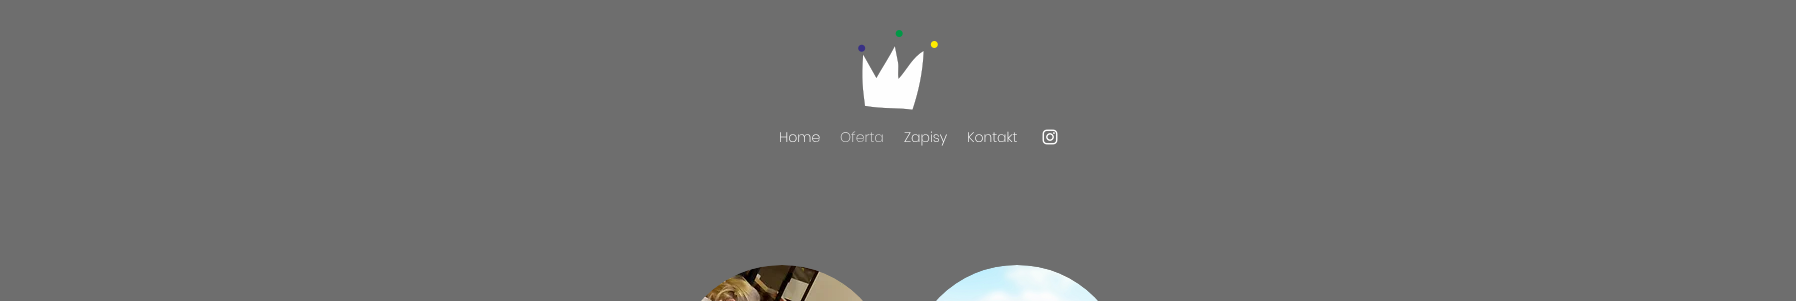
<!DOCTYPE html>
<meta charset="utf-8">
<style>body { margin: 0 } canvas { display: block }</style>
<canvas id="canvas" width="1796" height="301"></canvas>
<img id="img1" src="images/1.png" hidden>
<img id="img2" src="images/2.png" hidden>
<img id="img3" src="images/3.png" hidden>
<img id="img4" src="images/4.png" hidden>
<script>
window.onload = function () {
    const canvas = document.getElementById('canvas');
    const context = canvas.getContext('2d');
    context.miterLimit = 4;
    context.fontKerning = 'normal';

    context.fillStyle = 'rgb(110, 110, 110)';
    context.fillRect(0, 0, 1796, 301);
    context.drawImage(document.getElementById('img1'), 858, 30, 80, 80);
    context.drawImage(document.getElementById('img2'), 1042, 129, 16, 16);
    context.drawImage(document.getElementById('img3'), 701, 265, 162, 36);
    context.drawImage(document.getElementById('img4'), 936, 265, 162, 36);
    context.font = '200 14px Poppins';
    context.fillStyle = 'rgb(255, 255, 255)';
    context.fillText('Home', 779, 142);
    context.fillStyle = 'rgb(223, 223, 223)';
    context.fillText('Oferta', 840, 142);
    context.fillStyle = 'rgb(255, 255, 255)';
    context.fillText('Zapisy', 904, 142);
    context.fillText('Kontakt', 967, 142);
};
</script>
